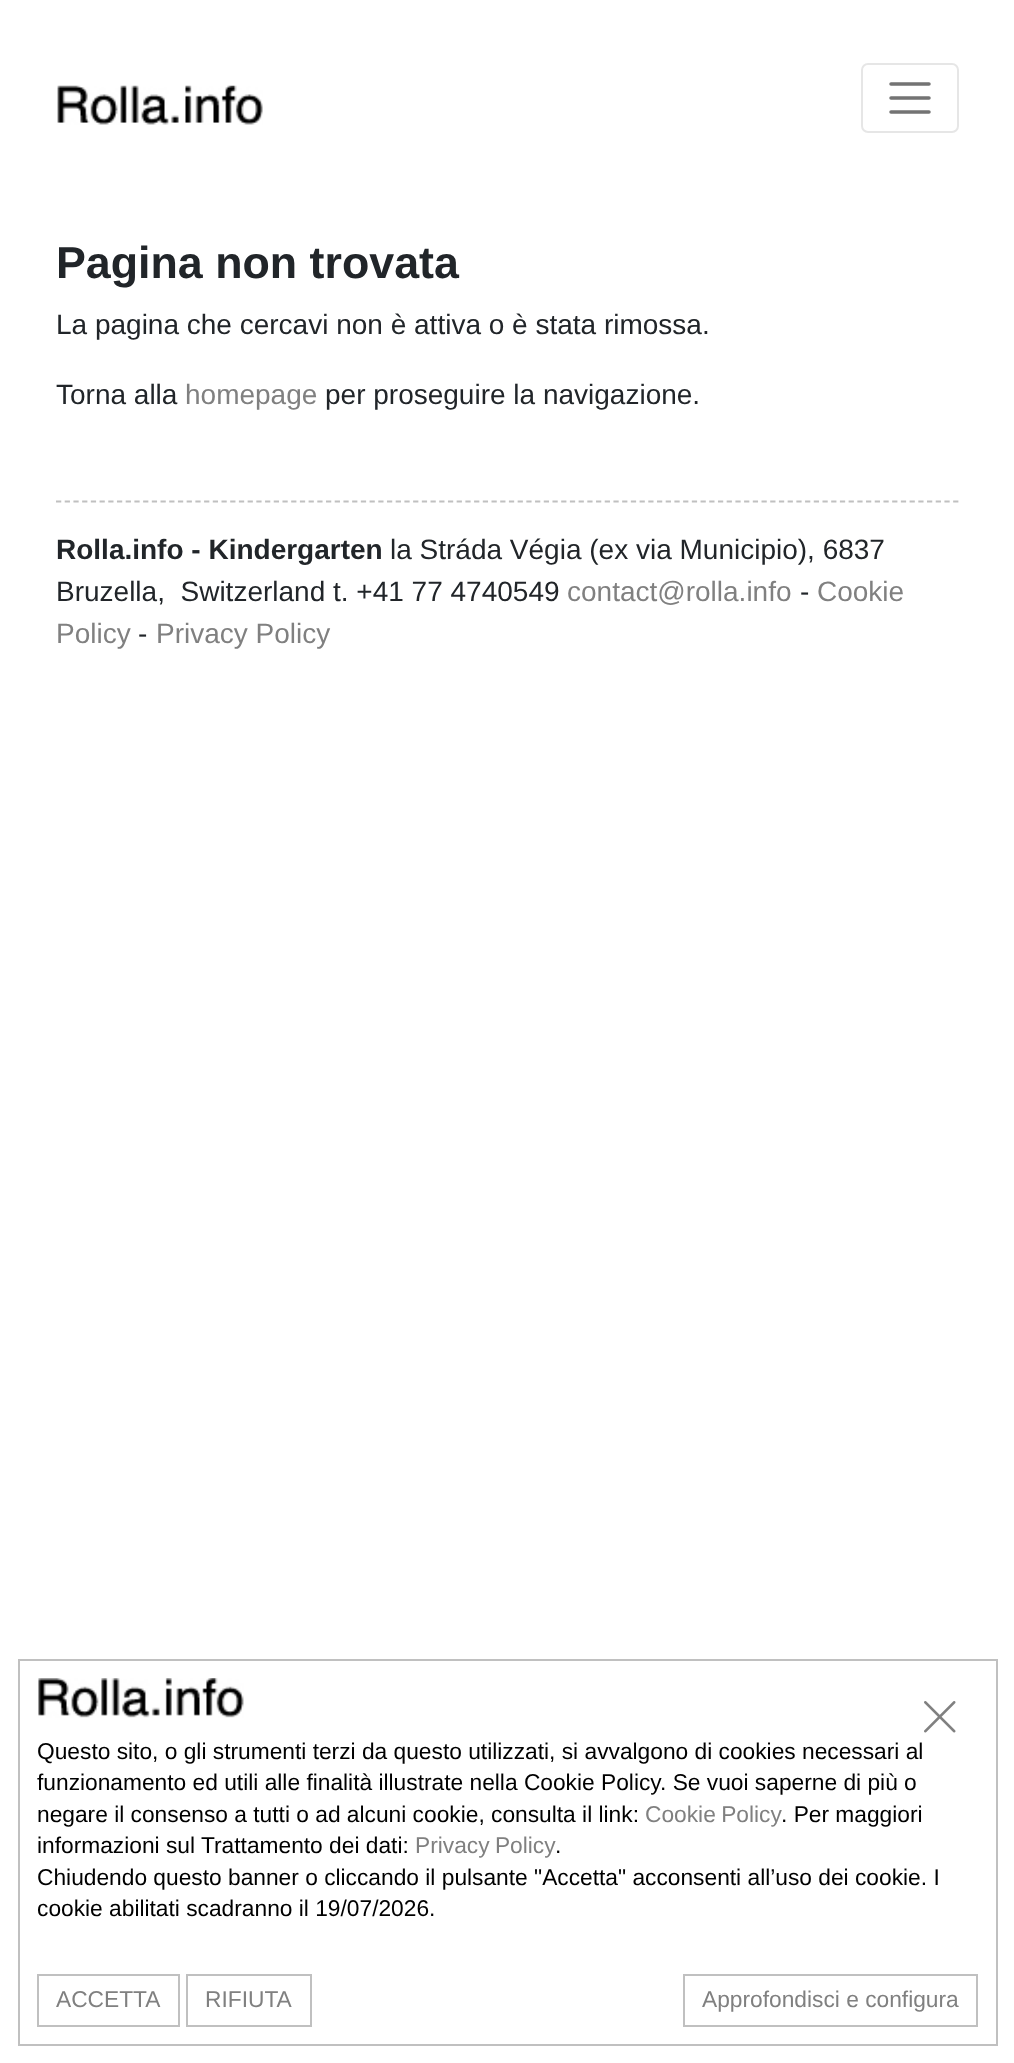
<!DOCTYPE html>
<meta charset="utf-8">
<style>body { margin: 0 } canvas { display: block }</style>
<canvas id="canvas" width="1014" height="2063"></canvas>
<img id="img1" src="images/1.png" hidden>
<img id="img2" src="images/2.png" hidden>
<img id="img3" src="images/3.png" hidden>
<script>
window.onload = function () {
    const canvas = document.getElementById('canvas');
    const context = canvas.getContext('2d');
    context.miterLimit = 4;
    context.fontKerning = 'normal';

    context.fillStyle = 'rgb(255, 255, 255)';
    context.fillRect(0, 0, 1014, 2063);
    context.drawImage(document.getElementById('img1'), 57, 85, 206, 40);
    context.beginPath();
    context.roundRect(862, 64, 96, 68, 6);
    context.strokeStyle = 'rgb(230, 230, 230)';
    context.lineWidth = 2;
    context.stroke();
    context.beginPath();
    context.moveTo(891, 84);
    context.lineTo(929, 84);
    context.moveTo(891, 98);
    context.lineTo(929, 98);
    context.moveTo(891, 112);
    context.lineTo(929, 112);
    context.strokeStyle = 'rgb(115, 115, 115)';
    context.lineWidth = 3.5;
    context.lineCap = 'round';
    context.stroke();
    context.beginPath();
    context.moveTo(56, 501.5);
    context.lineTo(959, 501.5);
    context.strokeStyle = 'rgb(192, 192, 192)';
    context.lineWidth = 1.8;
    context.lineCap = 'butt';
    context.setLineDash([5.25, 3.46]);
    context.stroke();
    context.lineWidth = 2;
    context.setLineDash([]);
    context.strokeRect(19, 1660, 978, 385);
    context.drawImage(document.getElementById('img2'), 38, 1678, 206, 40);
    context.drawImage(document.getElementById('img3'), 924, 1701, 32, 32);
    context.strokeRect(38, 1975, 141, 51);
    context.strokeRect(187, 1975, 124, 51);
    context.strokeRect(684, 1975, 293, 51);
    context.font = 'bold 44.75px Liberation Sans';
    context.fillStyle = 'rgb(33, 37, 41)';
    context.fillText('Pagina non trovata', 56, 278);
    context.font = '28px Liberation Sans';
    context.fillText('La pagina che cercavi non è attiva o è stata rimossa.', 56, 334);
    context.fillText('Torna alla', 56, 404);
    context.fillStyle = 'rgb(128, 128, 128)';
    context.fillText('homepage', 185, 404);
    context.fillStyle = 'rgb(33, 37, 41)';
    context.fillText('per proseguire la navigazione.', 325, 404);
    context.font = 'bold 28px Liberation Sans';
    context.fillText('Rolla.info - Kindergarten', 56, 559);
    context.font = '28px Liberation Sans';
    context.fillText('la Stráda Végia (ex via Municipio), 6837', 390, 559);
    context.fillText('Bruzella,  Switzerland t. +41 77 4740549', 56, 601);
    context.fillStyle = 'rgb(128, 128, 128)';
    context.fillText('contact@rolla.info', 567, 601);
    context.fillStyle = 'rgb(33, 37, 41)';
    context.fillText('-', 800, 601);
    context.fillStyle = 'rgb(128, 128, 128)';
    context.fillText('Cookie', 817, 601);
    context.fillText('Policy', 56, 643);
    context.fillStyle = 'rgb(33, 37, 41)';
    context.fillText('-', 138, 643);
    context.fillStyle = 'rgb(128, 128, 128)';
    context.fillText('Privacy Policy', 156, 643);
    context.font = '22.75px Liberation Sans';
    context.fillStyle = 'rgb(0, 0, 0)';
    context.fillText('Questo sito, o gli strumenti terzi da questo utilizzati, si avvalgono di cookies necessari al', 37, 1759);
    context.fillText('funzionamento ed utili alle finalità illustrate nella Cookie Policy. Se vuoi saperne di più o', 37, 1790);
    context.fillText('negare il consenso a tutti o ad alcuni cookie, consulta il link:', 37, 1822);
    context.wordSpacing = '-1px';
    context.fillStyle = 'rgb(128, 128, 128)';
    context.fillText('Cookie Policy', 645, 1822);
    context.wordSpacing = '0px';
    context.fillStyle = 'rgb(0, 0, 0)';
    context.fillText('. Per maggiori', 781, 1822);
    context.fillText('informazioni sul Trattamento dei dati:', 37, 1853);
    context.wordSpacing = '-1px';
    context.fillStyle = 'rgb(128, 128, 128)';
    context.fillText('Privacy Policy', 415, 1853);
    context.wordSpacing = '0px';
    context.fillStyle = 'rgb(0, 0, 0)';
    context.fillText('.', 555, 1853);
    context.fillText('Chiudendo questo banner o cliccando il pulsante "Accetta" acconsenti all’uso dei cookie. I', 37, 1885);
    context.fillText('cookie abilitati scadranno il 19/07/2026.', 37, 1916);
    context.fillStyle = 'rgb(128, 128, 128)';
    context.fillText('ACCETTA', 56, 2007);
    context.fillText('RIFIUTA', 205, 2007);
    context.fillText('Approfondisci e configura', 702, 2007);
};
</script>
